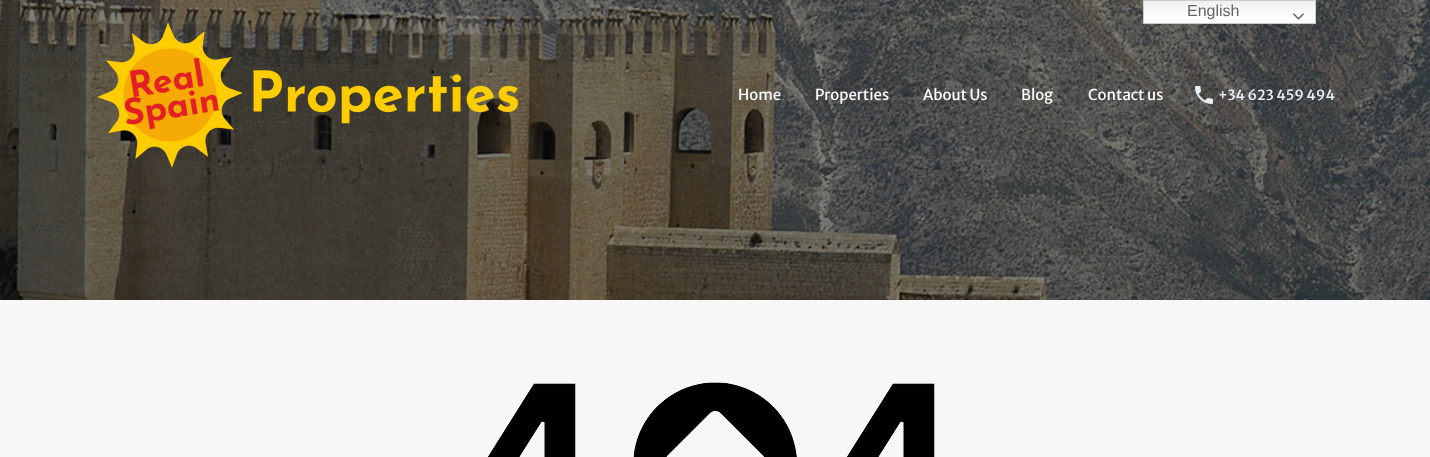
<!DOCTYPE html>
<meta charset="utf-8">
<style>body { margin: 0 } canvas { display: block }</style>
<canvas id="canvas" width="1430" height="457"></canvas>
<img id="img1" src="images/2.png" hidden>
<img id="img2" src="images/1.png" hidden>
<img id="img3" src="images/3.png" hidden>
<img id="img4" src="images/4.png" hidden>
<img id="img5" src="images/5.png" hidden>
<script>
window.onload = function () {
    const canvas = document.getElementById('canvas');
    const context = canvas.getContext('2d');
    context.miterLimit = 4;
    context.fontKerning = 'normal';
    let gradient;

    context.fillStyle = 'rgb(247, 247, 247)';
    context.fillRect(0, 0, 1430, 457);
    context.drawImage(document.getElementById('img1'), 0, 0, 1430, 300);
    gradient = context.createLinearGradient(1230, 0, 1230, 24);
    gradient.addColorStop(0, 'rgb(239, 239, 239)');
    gradient.addColorStop(0.7, 'rgb(255, 255, 255)');
    context.fillStyle = gradient;
    context.fillRect(1144, 1, 171, 22);
    context.strokeStyle = 'rgb(204, 204, 204)';
    context.strokeRect(1143.5, 0.5, 172, 23);
    context.drawImage(document.getElementById('img2'), 1293, 13, 11, 7);
    context.drawImage(document.getElementById('img3'), 97, 22, 422, 146);
    context.drawImage(document.getElementById('img4'), 1195, 86, 18, 18);
    context.drawImage(document.getElementById('img5'), 488, 382, 447, 75);
    context.font = '16px Liberation Sans';
    context.fillStyle = 'rgb(102, 102, 102)';
    context.fillText('English', 1187, 16);
    context.font = '15px Merriweather Sans';
    context.fillStyle = 'rgb(255, 255, 255)';
    context.fillText('Home', 738, 100);
    context.fillText('Properties', 815, 100);
    context.fillText('About Us', 923, 100);
    context.fillText('Blog', 1021, 100);
    context.fillText('Contact us', 1088, 100);
    context.font = '500 14px Merriweather Sans';
    context.fillStyle = 'rgb(231, 239, 247)';
    context.fillText('+34 623 459 494', 1218, 100);
};
</script>
